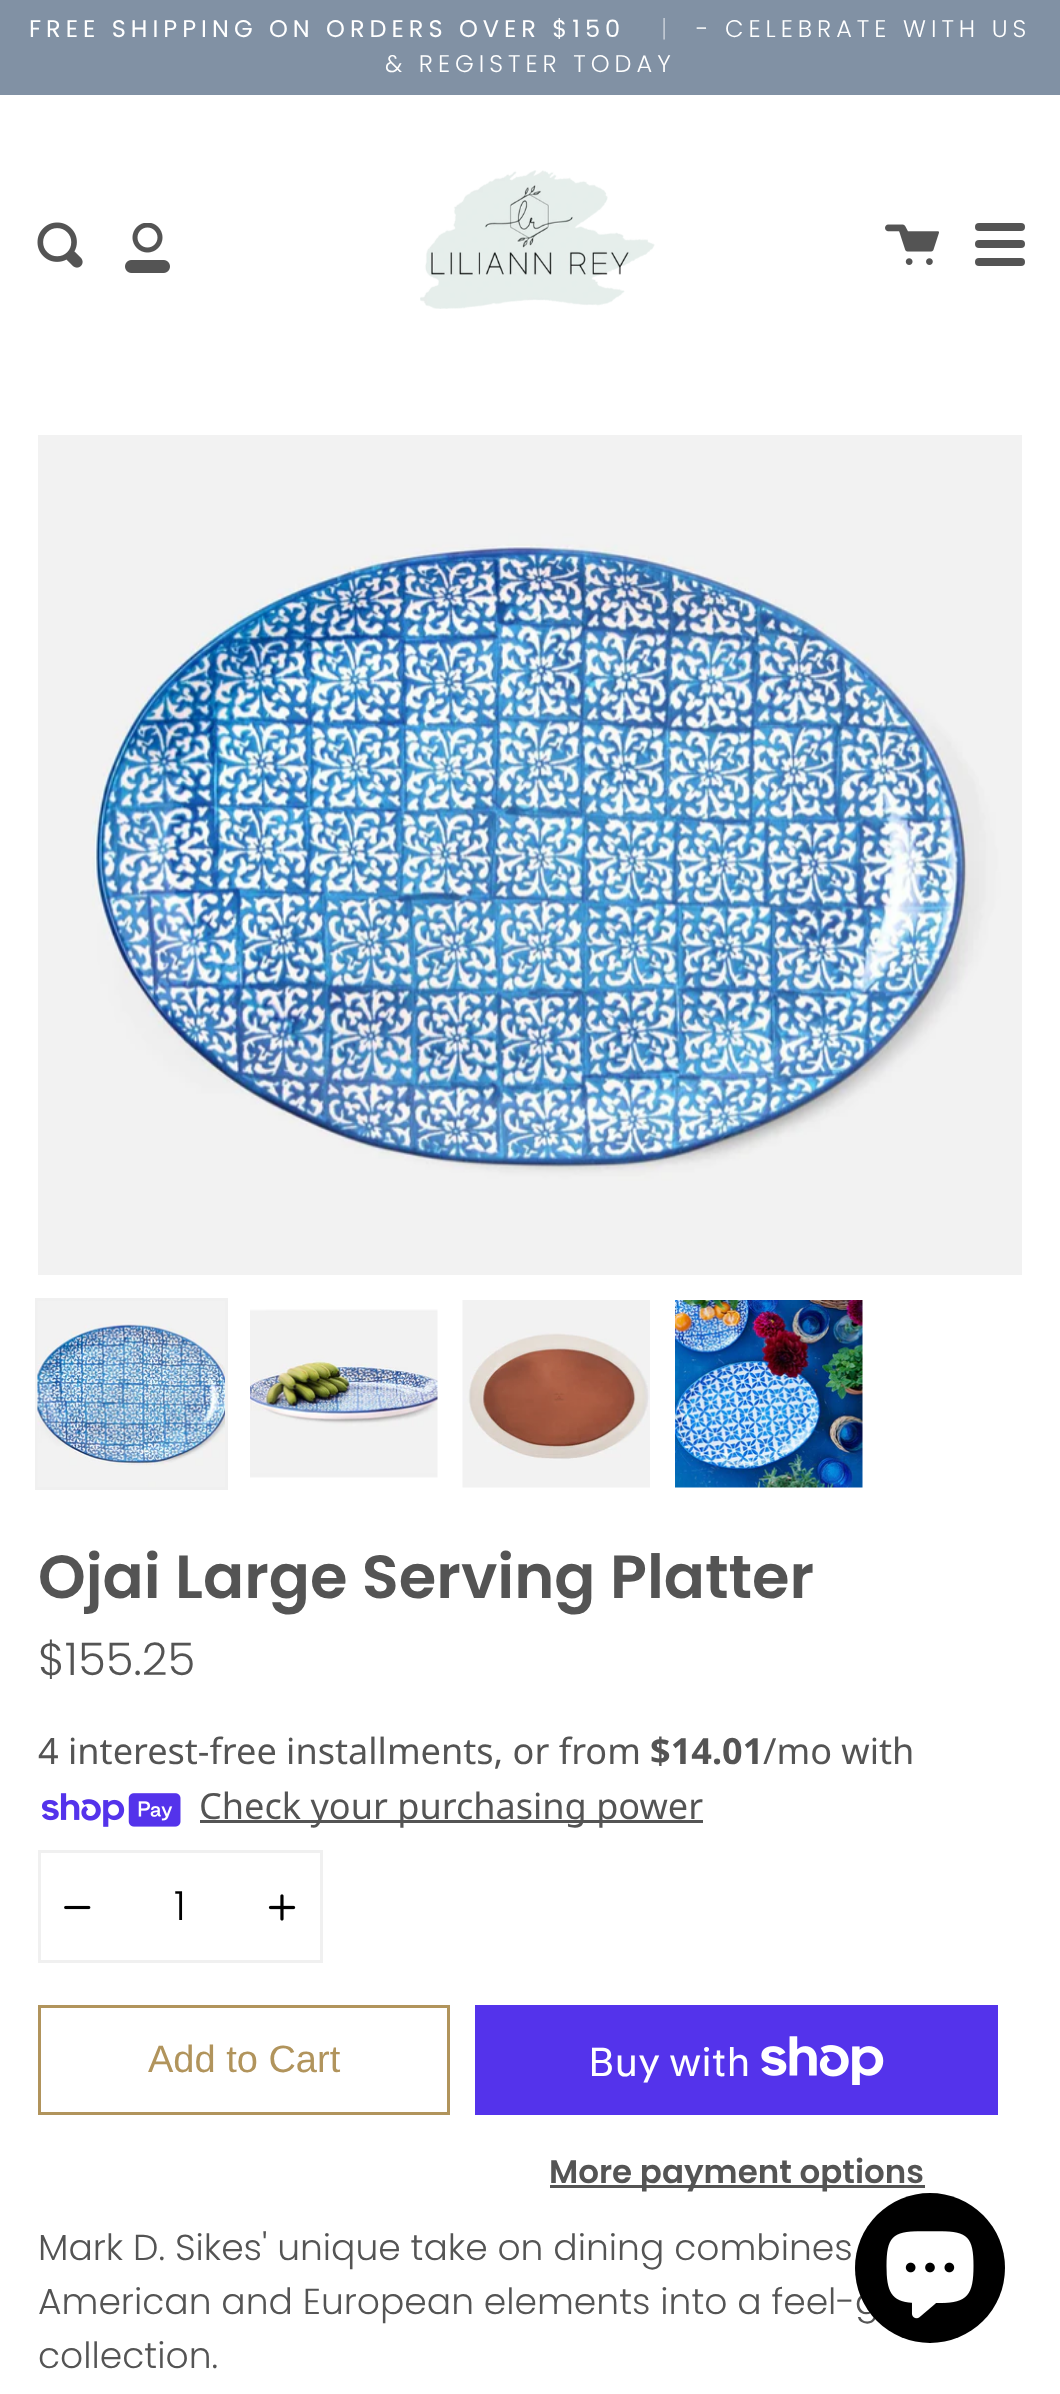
<!DOCTYPE html>
<meta charset="utf-8">
<style>body { margin: 0 } canvas { display: block }</style>
<canvas id="canvas" width="1060" height="2394"></canvas>
<img id="img1" src="images/1.png" hidden>
<img id="img2" src="images/2.png" hidden>
<img id="img3" src="images/3.png" hidden>
<img id="img4" src="images/4.png" hidden>
<img id="img5" src="images/5.png" hidden>
<img id="img6" src="images/6.png" hidden>
<img id="img7" src="images/7.png" hidden>
<img id="img8" src="images/8.png" hidden>
<img id="img9" src="images/9.png" hidden>
<img id="img10" src="images/10.png" hidden>
<img id="img11" src="images/11.png" hidden>
<img id="img12" src="images/12.png" hidden>
<img id="img13" src="images/13.png" hidden>
<img id="img14" src="images/14.png" hidden>
<script>
window.onload = function () {
    const canvas = document.getElementById('canvas');
    const context = canvas.getContext('2d');
    context.miterLimit = 4;
    context.fontKerning = 'normal';

    context.fillStyle = 'rgb(255, 255, 255)';
    context.fillRect(0, 0, 1060, 2394);
    context.fillStyle = 'rgb(129, 145, 164)';
    context.fillRect(0, 0, 1060, 95);
    context.drawImage(document.getElementById('img1'), 420, 170, 235, 139);
    context.drawImage(document.getElementById('img2'), 37, 222, 46, 46);
    context.drawImage(document.getElementById('img3'), 125, 223, 45, 50);
    context.drawImage(document.getElementById('img4'), 885, 224, 54, 41);
    context.fillStyle = 'rgb(84, 84, 84)';
    context.beginPath();
    context.roundRect(975, 223, 43, 8, [4, 0, 0, 4]);
    context.fill();
    context.beginPath();
    context.roundRect(983, 223, 42, 8, [0, 4, 4, 0]);
    context.fill();
    context.beginPath();
    context.roundRect(975, 240, 43, 8, [4, 0, 0, 4]);
    context.fill();
    context.beginPath();
    context.roundRect(983, 240, 42, 8, [0, 4, 4, 0]);
    context.fill();
    context.beginPath();
    context.roundRect(975, 258, 43, 8, [4, 0, 0, 4]);
    context.fill();
    context.beginPath();
    context.roundRect(983, 258, 42, 8, [0, 4, 4, 0]);
    context.fill();
    context.drawImage(document.getElementById('img5'), 38, 435, 984, 840);
    context.strokeStyle = 'rgb(240, 240, 240)';
    context.lineWidth = 3;
    context.strokeRect(36.5, 1299.5, 190, 189);
    context.drawImage(document.getElementById('img6'), 37, 1301, 188, 186);
    context.drawImage(document.getElementById('img7'), 250, 1309, 188, 169);
    context.drawImage(document.getElementById('img8'), 462, 1300, 188, 188);
    context.drawImage(document.getElementById('img9'), 675, 1300, 188, 188);
    context.drawImage(document.getElementById('img10'), 42, 1793, 139, 34);
    context.fillRect(200, 1820, 503, 3);
    context.strokeRect(39.5, 1851.5, 282, 110);
    context.drawImage(document.getElementById('img11'), 64, 1905, 27, 5);
    context.drawImage(document.getElementById('img12'), 268, 1894, 28, 27);
    context.strokeStyle = 'rgb(177, 148, 92)';
    context.strokeRect(39.5, 2006.5, 409, 107);
    context.fillStyle = 'rgb(84, 51, 235)';
    context.fillRect(475, 2005, 523, 110);
    context.drawImage(document.getElementById('img13'), 761, 2036, 123, 49);
    context.fillStyle = 'rgb(84, 84, 84)';
    context.fillRect(550, 2185, 375, 3);
    context.letterSpacing = '5px';
    context.font = '24px Poppins';
    context.fillStyle = 'rgb(255, 255, 255)';
    context.fillText('FREE SHIPPING ON ORDERS OVER $150', 29, 37);
    context.font = '300 24px Poppins';
    context.fillStyle = 'rgb(192, 200, 210)';
    context.fillText('|', 661, 37);
    context.fillStyle = 'rgb(255, 255, 255)';
    context.fillText('- CELEBRATE WITH US', 696, 37);
    context.fillText('& REGISTER TODAY', 385, 72);
    context.letterSpacing = '0px';
    context.font = '600 60.75px Poppins';
    context.fillStyle = 'rgb(84, 84, 84)';
    context.fillText('Ojai Large Serving Platter', 38, 1598);
    context.font = '300 45px Poppins';
    context.fillText('$155.25', 38, 1675);
    context.font = '36.1px Noto Sans';
    context.fillText('4 interest-free installments, or from', 38, 1764);
    context.font = 'bold 36.1px Noto Sans';
    context.fillText('$14.01', 650, 1764);
    context.font = '36.1px Noto Sans';
    context.fillText('/mo with', 763, 1764);
    context.fillText('Check your purchasing power', 199, 1819);
    context.font = '300 40px Poppins';
    context.fillStyle = 'rgb(0, 0, 0)';
    context.fillText('1', 174, 1920);
    context.font = '38px Liberation Sans';
    context.fillStyle = 'rgb(177, 148, 92)';
    context.fillText('Add to Cart', 148, 2072);
    context.font = '40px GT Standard';
    context.fillStyle = 'rgb(255, 255, 255)';
    context.fillText('Buy with', 588, 2076);
    context.font = '600 32.5px Poppins';
    context.fillStyle = 'rgb(84, 84, 84)';
    context.fillText('More payment options', 549, 2183);
    context.font = '300 36.1px Poppins';
    context.fillText('Mark D. Sikes\' unique take on dining combines', 38, 2260);
    context.fillText('American and European elements into a feel-g', 38, 2314);
    context.fillText('collection.', 38, 2368);
    context.fillStyle = 'rgb(0, 0, 0)';
    context.beginPath();
    context.arc(930, 2268, 75, 0, 2 * Math.PI);
    context.fill();
    context.drawImage(document.getElementById('img14'), 886, 2231, 88, 88);
};
</script>
